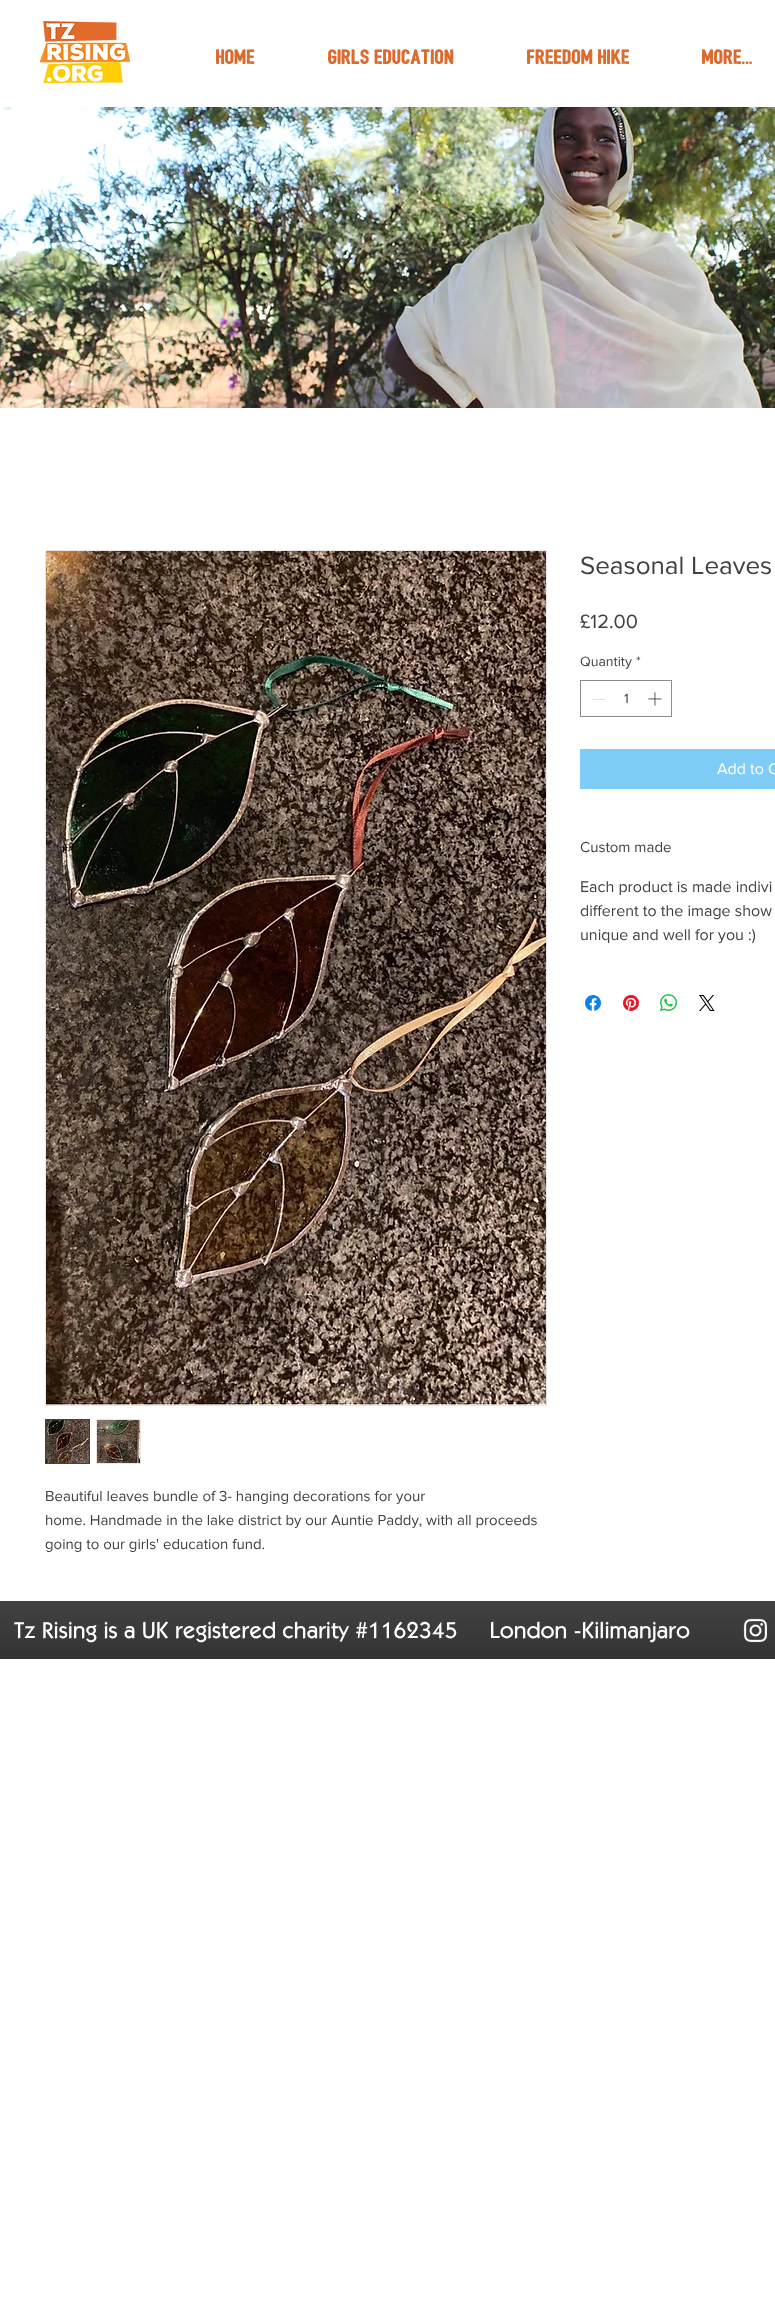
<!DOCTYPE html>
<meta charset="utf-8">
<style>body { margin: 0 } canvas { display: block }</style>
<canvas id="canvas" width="775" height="2301"></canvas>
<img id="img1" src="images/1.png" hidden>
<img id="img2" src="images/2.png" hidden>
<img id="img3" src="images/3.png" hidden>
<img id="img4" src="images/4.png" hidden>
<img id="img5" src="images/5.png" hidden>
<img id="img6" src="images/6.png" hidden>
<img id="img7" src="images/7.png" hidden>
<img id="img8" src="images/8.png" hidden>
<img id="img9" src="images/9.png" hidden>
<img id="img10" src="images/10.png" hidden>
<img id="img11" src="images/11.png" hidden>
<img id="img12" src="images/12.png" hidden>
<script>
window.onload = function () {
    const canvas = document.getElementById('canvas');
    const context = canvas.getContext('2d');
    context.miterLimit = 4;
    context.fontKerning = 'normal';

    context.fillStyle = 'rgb(255, 255, 255)';
    context.fillRect(0, 0, 775, 2301);
    context.drawImage(document.getElementById('img1'), 40, 21, 90, 62);
    context.drawImage(document.getElementById('img2'), 0, 107, 775, 301);
    context.strokeStyle = 'rgb(141, 141, 141)';
    context.strokeRect(580.5, 680.5, 91, 36);
    context.fillStyle = 'rgb(227, 227, 227)';
    context.fillRect(592, 699, 13, 1);
    context.drawImage(document.getElementById('img3'), 648, 692, 14, 14);
    context.fillStyle = 'rgb(127, 204, 247)';
    context.fillRect(580, 749, 195, 40);
    context.drawImage(document.getElementById('img4'), 585, 995, 16, 16);
    context.drawImage(document.getElementById('img5'), 623, 995, 16, 16);
    context.drawImage(document.getElementById('img6'), 660, 994, 17, 17);
    context.drawImage(document.getElementById('img7'), 699, 995, 16, 16);
    context.strokeStyle = 'rgb(232, 230, 230)';
    context.strokeRect(45.5, 550.5, 501, 855);
    context.drawImage(document.getElementById('img8'), 46, 551, 500, 854);
    context.strokeStyle = 'rgb(65, 65, 65)';
    context.strokeRect(45.5, 1419.5, 44, 44);
    context.drawImage(document.getElementById('img9'), 46, 1420, 43, 43);
    context.strokeStyle = 'rgb(232, 230, 230)';
    context.strokeRect(96.5, 1419.5, 44, 44);
    context.drawImage(document.getElementById('img10'), 97, 1420, 43, 43);
    context.fillStyle = 'rgb(0, 0, 0)';
    context.fillRect(0, 1601, 775, 58);
    context.drawImage(document.getElementById('img11'), 0, 1601, 775, 58);
    context.drawImage(document.getElementById('img12'), 743, 1618, 25, 25);
    context.font = 'bold 20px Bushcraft';
    context.fillStyle = 'rgb(220, 107, 47)';
    context.fillText('HOME', 216, 64);
    context.fillText('Girls Education', 328, 64);
    context.fillText('Freedom Hike', 527, 64);
    context.fillText('More...', 702, 64);
    context.font = '26px "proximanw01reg"';
    context.fillStyle = 'rgb(65, 65, 65)';
    context.fillText('Seasonal Leaves', 580, 574);
    context.font = '20px "proximanw01reg"';
    context.fillText('£12.00', 580, 628);
    context.font = '14px "proximanw01reg"';
    context.fillText('Quantity', 580, 666);
    context.fillText('*', 636, 666);
    context.fillText('1', 624, 703);
    context.font = '16px "proximanw01reg"';
    context.fillStyle = 'rgb(255, 255, 255)';
    context.fillText('Add to C', 717, 774);
    context.font = '15px "proximanw01reg"';
    context.fillStyle = 'rgb(65, 65, 65)';
    context.fillText('Custom made', 580, 852);
    context.font = '16px "proximanw01reg"';
    context.fillText('Each product is made indivi', 580, 892);
    context.fillText('different to the image show', 580, 916);
    context.fillText('unique and well for you :)', 580, 940);
    context.font = '15px "proximanw01reg"';
    context.fillText('Beautiful leaves bundle of 3- hanging decorations for your', 45, 1501);
    context.fillText('home. Handmade in the lake district by our Auntie Paddy, with all proceeds', 45, 1525);
    context.fillText('going to our girls\' education fund.', 45, 1549);
    context.font = '500 23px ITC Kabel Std';
    context.fillStyle = 'rgb(255, 255, 255)';
    context.fillText('Tz Rising is a UK registered charity #1162345     London -Kilimanjaro', 14, 1638);
};
</script>
